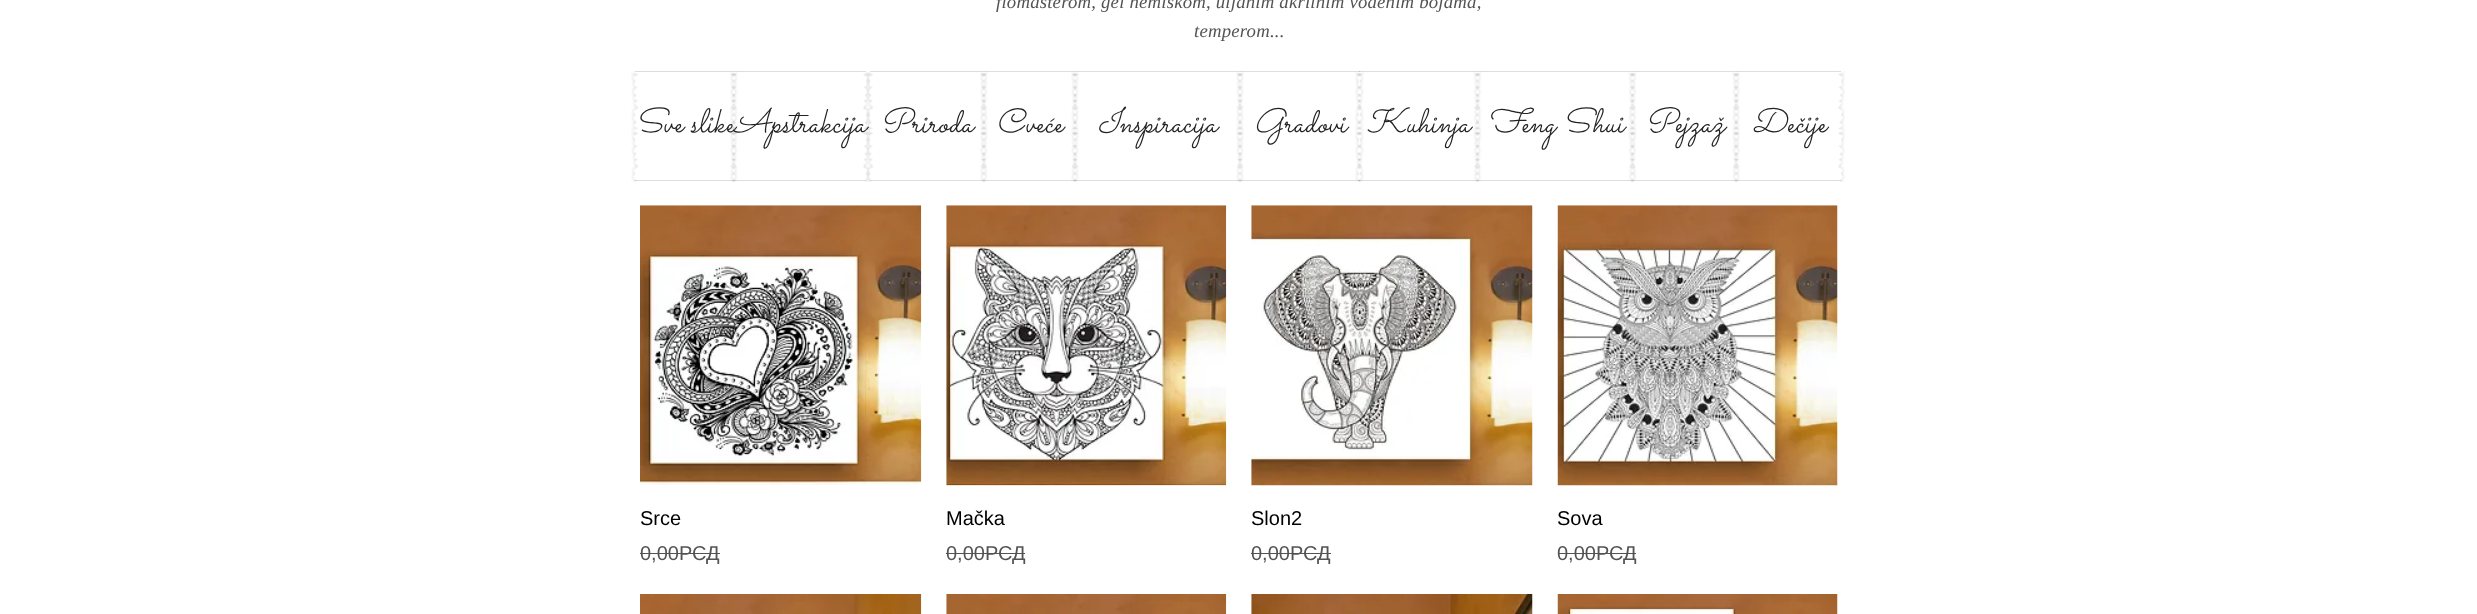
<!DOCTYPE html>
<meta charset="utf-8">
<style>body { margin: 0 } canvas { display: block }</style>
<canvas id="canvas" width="2477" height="614"></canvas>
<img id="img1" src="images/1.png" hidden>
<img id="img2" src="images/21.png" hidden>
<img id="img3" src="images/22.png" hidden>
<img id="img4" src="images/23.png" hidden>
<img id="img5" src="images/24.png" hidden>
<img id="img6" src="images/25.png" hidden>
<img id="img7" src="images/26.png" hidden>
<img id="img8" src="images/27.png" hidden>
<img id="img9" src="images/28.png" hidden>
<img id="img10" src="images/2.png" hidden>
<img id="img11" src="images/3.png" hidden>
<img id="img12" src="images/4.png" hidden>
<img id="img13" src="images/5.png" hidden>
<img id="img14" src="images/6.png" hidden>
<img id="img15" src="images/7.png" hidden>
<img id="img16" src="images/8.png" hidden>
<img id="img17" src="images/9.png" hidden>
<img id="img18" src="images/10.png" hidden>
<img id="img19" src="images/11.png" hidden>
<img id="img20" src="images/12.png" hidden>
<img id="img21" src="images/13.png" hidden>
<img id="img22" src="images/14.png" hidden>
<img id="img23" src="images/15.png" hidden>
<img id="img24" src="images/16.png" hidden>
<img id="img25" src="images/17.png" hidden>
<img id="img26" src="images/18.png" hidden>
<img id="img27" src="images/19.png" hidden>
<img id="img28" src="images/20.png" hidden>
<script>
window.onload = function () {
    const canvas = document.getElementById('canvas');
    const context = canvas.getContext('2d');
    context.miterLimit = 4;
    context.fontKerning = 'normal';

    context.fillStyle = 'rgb(255, 255, 255)';
    context.fillRect(0, 0, 2477, 614);
    context.drawImage(document.getElementById('img1'), 631, 71, 8, 111);
    context.fillStyle = 'rgb(220, 220, 220)';
    context.fillRect(635, 71, 99, 1);
    context.fillStyle = 'rgba(0, 0, 0, 0.13)';
    context.fillRect(635, 180, 99, 1);
    context.fillStyle = 'rgb(220, 220, 220)';
    context.fillRect(870, 71, 114, 1);
    context.drawImage(document.getElementById('img2'), 640, 205, 282, 280);
    context.fillStyle = 'rgb(83, 83, 83)';
    context.fillRect(640, 553, 80, 1);
    context.drawImage(document.getElementById('img3'), 946, 205, 281, 281);
    context.fillRect(946, 553, 79, 1);
    context.drawImage(document.getElementById('img4'), 1251, 205, 282, 281);
    context.fillRect(1251, 553, 80, 1);
    context.drawImage(document.getElementById('img5'), 1557, 205, 281, 281);
    context.fillRect(1558, 553, 78, 1);
    context.drawImage(document.getElementById('img6'), 640, 594, 282, 20);
    context.drawImage(document.getElementById('img7'), 946, 594, 281, 20);
    context.drawImage(document.getElementById('img8'), 1251, 594, 282, 20);
    context.drawImage(document.getElementById('img9'), 1557, 594, 281, 20);
    context.letterSpacing = '0.2px';
    context.font = 'italic 18.75px Liberation Serif';
    context.fillText('flomasterom, gel hemiskom, uljanim akrilnim vodenim bojama,', 996, 8);
    context.fillText('temperom...', 1194, 37);
    context.letterSpacing = '0px';
    context.font = 'italic 33.75px Sacramento';
    context.fillStyle = 'rgb(35, 35, 35)';
    context.fillText('Sve slike', 635, 132);
    context.drawImage(document.getElementById('img10'), 730, 71, 8, 111);
    context.drawImage(document.getElementById('img11'), 730, 72, 7, 110);
    context.fillStyle = 'rgba(0, 0, 0, 0.13)';
    context.fillRect(734, 71, 132, 1);
    context.fillRect(734, 180, 132, 1);
    context.fillStyle = 'rgb(35, 35, 35)';
    context.fillText('Apstrakcija', 734, 132);
    context.drawImage(document.getElementById('img12'), 863, 71, 7, 111);
    context.drawImage(document.getElementById('img13'), 866, 72, 8, 110);
    context.fillStyle = 'rgba(0, 0, 0, 0.13)';
    context.fillRect(870, 180, 114, 1);
    context.fillStyle = 'rgb(35, 35, 35)';
    context.fillText('Priroda', 880, 132);
    context.drawImage(document.getElementById('img14'), 980, 71, 8, 111);
    context.drawImage(document.getElementById('img15'), 980, 72, 7, 110);
    context.fillStyle = 'rgba(0, 0, 0, 0.13)';
    context.fillRect(984, 71, 91, 1);
    context.fillRect(984, 180, 91, 1);
    context.fillStyle = 'rgb(35, 35, 35)';
    context.fillText('Cveće', 996, 132);
    context.drawImage(document.getElementById('img16'), 1072, 71, 7, 111);
    context.drawImage(document.getElementById('img17'), 1071, 72, 8, 110);
    context.fillStyle = 'rgba(0, 0, 0, 0.13)';
    context.fillRect(1075, 71, 165, 1);
    context.fillRect(1075, 180, 165, 1);
    context.fillStyle = 'rgb(35, 35, 35)';
    context.fillText('Inspiracija', 1098, 132);
    context.drawImage(document.getElementById('img18'), 1237, 71, 7, 111);
    context.drawImage(document.getElementById('img19'), 1236, 72, 8, 110);
    context.fillStyle = 'rgba(0, 0, 0, 0.13)';
    context.fillRect(1240, 71, 120, 1);
    context.fillRect(1240, 180, 120, 1);
    context.fillStyle = 'rgb(35, 35, 35)';
    context.fillText('Gradovi', 1254, 132);
    context.drawImage(document.getElementById('img20'), 1357, 71, 7, 111);
    context.drawImage(document.getElementById('img21'), 1355, 72, 7, 110);
    context.fillStyle = 'rgba(0, 0, 0, 0.13)';
    context.fillRect(1359, 71, 119, 1);
    context.fillRect(1359, 180, 119, 1);
    context.fillStyle = 'rgb(35, 35, 35)';
    context.fillText('Kuhinja', 1367, 132);
    context.drawImage(document.getElementById('img22'), 1474, 71, 8, 111);
    context.drawImage(document.getElementById('img23'), 1473, 72, 8, 110);
    context.fillStyle = 'rgba(0, 0, 0, 0.13)';
    context.fillRect(1478, 71, 155, 1);
    context.fillRect(1478, 180, 155, 1);
    context.fillStyle = 'rgb(35, 35, 35)';
    context.fillText('Feng Shui', 1487, 132);
    context.drawImage(document.getElementById('img24'), 1629, 71, 8, 111);
    context.drawImage(document.getElementById('img25'), 1628, 72, 8, 110);
    context.fillStyle = 'rgba(0, 0, 0, 0.13)';
    context.fillRect(1633, 71, 103, 1);
    context.fillRect(1633, 180, 103, 1);
    context.fillStyle = 'rgb(35, 35, 35)';
    context.fillText('Pejzaž', 1645, 132);
    context.drawImage(document.getElementById('img26'), 1733, 71, 7, 111);
    context.drawImage(document.getElementById('img27'), 1732, 72, 8, 110);
    context.fillStyle = 'rgba(0, 0, 0, 0.13)';
    context.fillRect(1736, 71, 105, 1);
    context.fillRect(1736, 180, 105, 1);
    context.fillStyle = 'rgb(35, 35, 35)';
    context.fillText('Dečije', 1752, 132);
    context.drawImage(document.getElementById('img28'), 1838, 71, 7, 111);
    context.font = '20px Liberation Sans';
    context.fillStyle = 'rgb(0, 0, 0)';
    context.fillText('Srce', 640, 525);
    context.fillStyle = 'rgb(83, 83, 83)';
    context.fillText('0,00РСД', 640, 560);
    context.fillStyle = 'rgb(0, 0, 0)';
    context.fillText('Mačka', 946, 525);
    context.fillStyle = 'rgb(83, 83, 83)';
    context.fillText('0,00РСД', 946, 560);
    context.fillStyle = 'rgb(0, 0, 0)';
    context.fillText('Slon2', 1251, 525);
    context.fillStyle = 'rgb(83, 83, 83)';
    context.fillText('0,00РСД', 1251, 560);
    context.fillStyle = 'rgb(0, 0, 0)';
    context.fillText('Sova', 1557, 525);
    context.fillStyle = 'rgb(83, 83, 83)';
    context.fillText('0,00РСД', 1557, 560);
};
</script>
